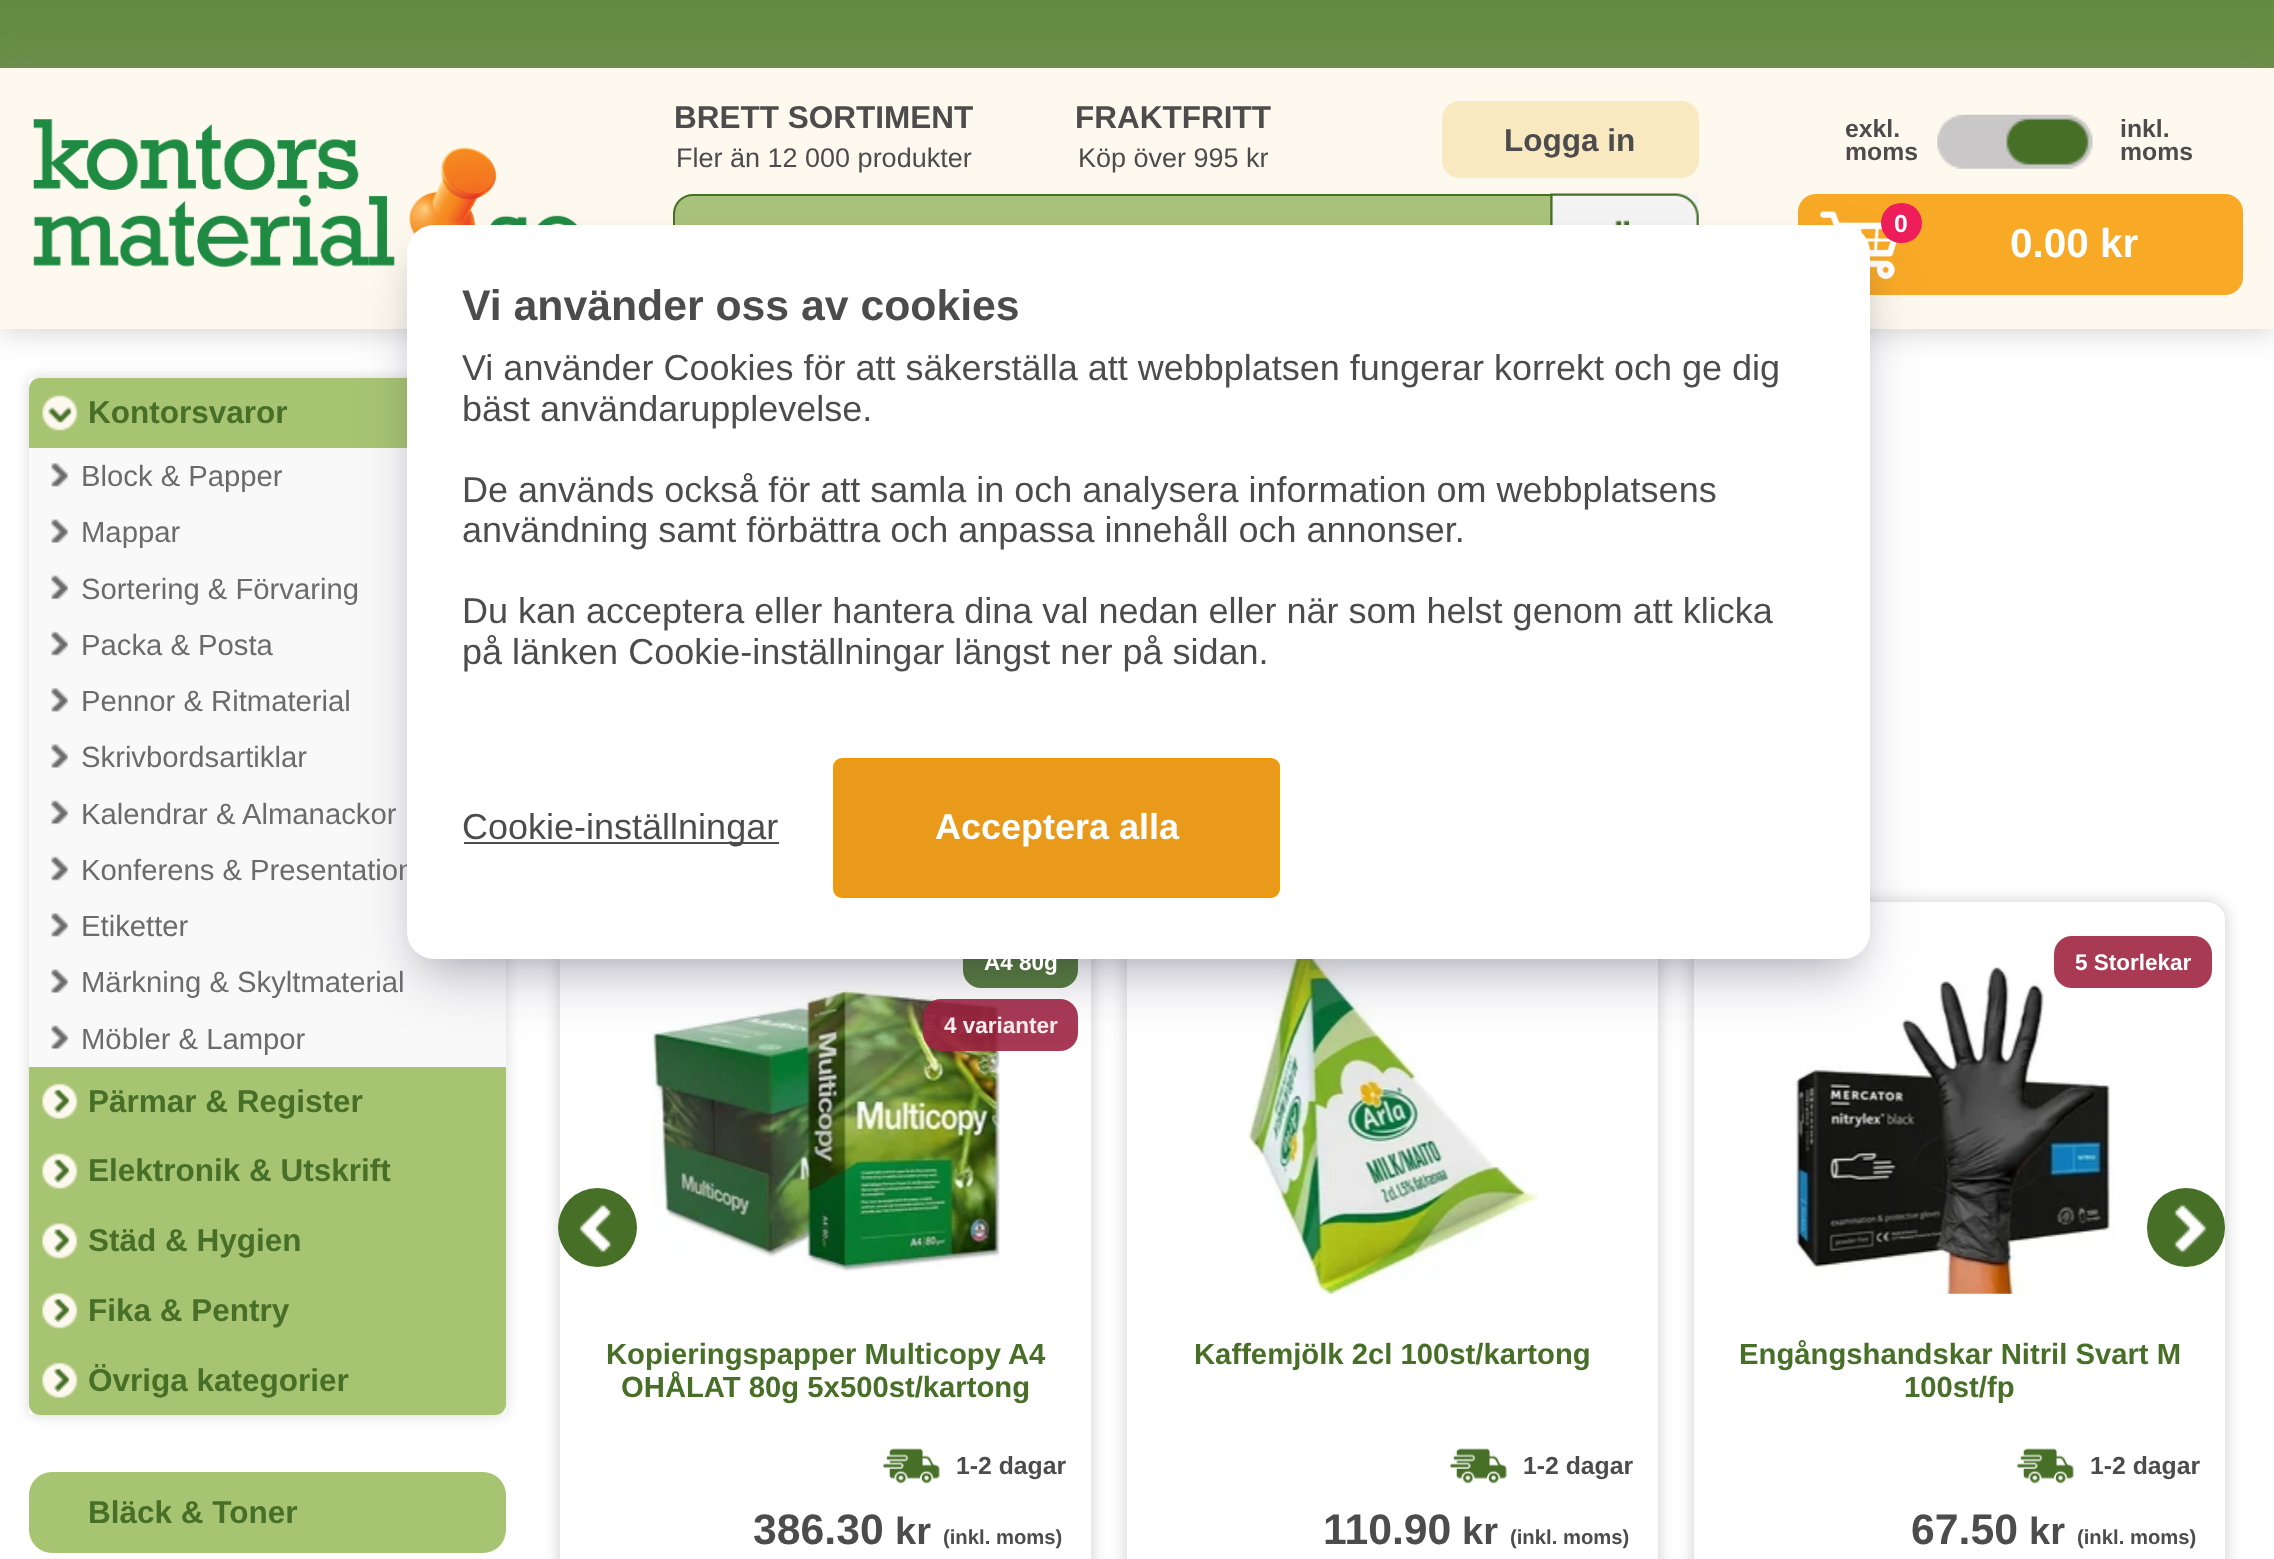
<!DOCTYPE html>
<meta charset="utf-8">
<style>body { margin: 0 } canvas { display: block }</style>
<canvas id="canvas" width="2274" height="1559"></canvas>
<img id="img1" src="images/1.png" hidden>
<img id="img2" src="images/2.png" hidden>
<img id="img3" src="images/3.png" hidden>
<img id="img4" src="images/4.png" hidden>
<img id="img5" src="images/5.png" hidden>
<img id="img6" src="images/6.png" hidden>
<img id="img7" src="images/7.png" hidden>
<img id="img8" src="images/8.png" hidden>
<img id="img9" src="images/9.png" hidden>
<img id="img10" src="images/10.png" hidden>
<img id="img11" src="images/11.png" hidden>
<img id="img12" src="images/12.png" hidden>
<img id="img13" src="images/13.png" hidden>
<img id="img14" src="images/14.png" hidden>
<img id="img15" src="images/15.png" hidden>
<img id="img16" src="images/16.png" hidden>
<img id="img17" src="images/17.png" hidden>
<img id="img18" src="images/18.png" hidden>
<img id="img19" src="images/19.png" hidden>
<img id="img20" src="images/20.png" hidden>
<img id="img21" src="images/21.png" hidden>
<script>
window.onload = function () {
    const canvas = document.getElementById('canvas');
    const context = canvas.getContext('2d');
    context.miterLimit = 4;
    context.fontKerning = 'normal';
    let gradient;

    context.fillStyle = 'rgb(255, 255, 255)';
    context.fillRect(0, 0, 2274, 1559);
    gradient = context.createLinearGradient(1137, 0, 1137, 1559);
    gradient.addColorStop(0, 'rgb(99, 139, 65)');
    gradient.addColorStop(0.51, 'rgb(166, 195, 111)');
    gradient.addColorStop(1, 'rgb(166, 195, 111)');
    context.fillStyle = gradient;
    context.fillRect(0, 0, 2274, 68);
    context.fillStyle = 'rgba(128, 128, 128, 0.4)';
    context.filter = 'blur(16px)';
    context.beginPath();
    context.rect(0, 68, 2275, 261);
    context.fill();
    context.filter = 'none';
    context.fillStyle = 'rgb(253, 249, 238)';
    context.fillRect(0, 68, 2274, 261);
    context.drawImage(document.getElementById('img1'), 33, 119, 545, 154);
    context.fillStyle = 'rgb(248, 233, 192)';
    context.beginPath();
    context.roundRect(1442, 101, 257, 77, 18);
    context.fill();
    context.drawImage(document.getElementById('img2'), 1937, 114, 156, 55);
    context.fillStyle = 'rgb(170, 195, 124)';
    context.beginPath();
    context.roundRect(674, 195, 1010, 99, [19, 0, 0, 19]);
    context.fill();
    context.strokeStyle = 'rgb(71, 111, 39)';
    context.lineWidth = 2;
    context.stroke();
    context.drawImage(document.getElementById('img3'), 1550, 193, 149, 32);
    context.fillStyle = 'rgb(248, 169, 38)';
    context.beginPath();
    context.roundRect(1798, 194, 445, 101, 18);
    context.fill();
    context.drawImage(document.getElementById('img4'), 1820, 211, 77, 68);
    context.fillStyle = 'rgb(238, 30, 91)';
    context.beginPath();
    context.roundRect(1881, 203, 41, 40, 20);
    context.fill();
    context.fillStyle = 'rgba(128, 128, 128, 0.3)';
    context.filter = 'blur(7px)';
    context.beginPath();
    context.rect(29, 378, 477, 1037);
    context.fill();
    context.filter = 'none';
    context.fillStyle = 'rgb(249, 249, 249)';
    context.fillRect(29, 378, 477, 1037);
    context.fillStyle = 'rgb(167, 196, 114)';
    context.beginPath();
    context.roundRect(29, 378, 477, 70, [11, 11, 0, 0]);
    context.fill();
    context.drawImage(document.getElementById('img5'), 42, 395, 36, 36);
    context.drawImage(document.getElementById('img6'), 51, 463, 18, 24);
    context.drawImage(document.getElementById('img7'), 51, 519, 18, 24);
    context.drawImage(document.getElementById('img8'), 51, 575, 18, 25);
    context.drawImage(document.getElementById('img9'), 51, 631, 18, 25);
    context.drawImage(document.getElementById('img6'), 51, 688, 18, 24);
    context.drawImage(document.getElementById('img7'), 51, 744, 18, 24);
    context.drawImage(document.getElementById('img10'), 51, 800, 18, 25);
    context.drawImage(document.getElementById('img9'), 51, 856, 18, 25);
    context.drawImage(document.getElementById('img6'), 51, 913, 18, 24);
    context.drawImage(document.getElementById('img7'), 51, 969, 18, 24);
    context.drawImage(document.getElementById('img10'), 51, 1025, 18, 25);
    context.fillRect(29, 1067, 477, 279);
    context.drawImage(document.getElementById('img11'), 42, 1083, 36, 36);
    context.drawImage(document.getElementById('img12'), 42, 1153, 36, 36);
    context.drawImage(document.getElementById('img13'), 42, 1223, 36, 36);
    context.drawImage(document.getElementById('img14'), 42, 1293, 36, 36);
    context.beginPath();
    context.roundRect(29, 1346, 477, 69, [0, 0, 11, 11]);
    context.fill();
    context.drawImage(document.getElementById('img11'), 42, 1362, 36, 36);
    context.beginPath();
    context.roundRect(29, 1472, 477, 81, 23);
    context.fill();
    context.save();
    context.beginPath();
    context.moveTo(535, 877);
    context.lineTo(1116, 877);
    context.lineTo(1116, 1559);
    context.lineTo(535, 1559);
    context.closePath();
    context.moveTo(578, 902);
    context.lineTo(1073, 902);
    context.bezierCurveTo(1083, 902, 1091, 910, 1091, 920);
    context.lineTo(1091, 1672);
    context.bezierCurveTo(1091, 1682, 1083, 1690, 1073, 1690);
    context.lineTo(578, 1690);
    context.bezierCurveTo(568, 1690, 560, 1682, 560, 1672);
    context.lineTo(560, 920);
    context.bezierCurveTo(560, 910, 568, 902, 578, 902);
    context.closePath();
    context.clip('evenodd');
    context.fillStyle = 'rgba(128, 128, 128, 0.4)';
    context.filter = 'blur(8px)';
    context.beginPath();
    context.roundRect(560, 902, 531, 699, 18);
    context.fill();
    context.filter = 'none';
    context.restore();
    context.fillStyle = 'rgb(71, 111, 39)';
    context.beginPath();
    context.arc(597.5, 1227.5, 39.5, 0, 2 * Math.PI);
    context.fill();
    context.drawImage(document.getElementById('img15'), 578, 1204, 34, 49);
    context.fillStyle = 'rgb(89, 125, 61)';
    context.beginPath();
    context.roundRect(963, 936, 115, 52, 18);
    context.fill();
    context.drawImage(document.getElementById('img16'), 652, 989, 348, 283);
    context.fillStyle = 'rgba(159, 36, 65, 0.9)';
    context.beginPath();
    context.roundRect(923, 999, 155, 52, 18);
    context.fill();
    context.drawImage(document.getElementById('img17'), 883, 1448, 57, 36);
    context.save();
    context.beginPath();
    context.moveTo(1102, 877);
    context.lineTo(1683, 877);
    context.lineTo(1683, 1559);
    context.lineTo(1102, 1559);
    context.closePath();
    context.moveTo(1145, 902);
    context.lineTo(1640, 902);
    context.bezierCurveTo(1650, 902, 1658, 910, 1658, 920);
    context.lineTo(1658, 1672);
    context.bezierCurveTo(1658, 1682, 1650, 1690, 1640, 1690);
    context.lineTo(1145, 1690);
    context.bezierCurveTo(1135, 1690, 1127, 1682, 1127, 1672);
    context.lineTo(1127, 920);
    context.bezierCurveTo(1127, 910, 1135, 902, 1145, 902);
    context.closePath();
    context.clip('evenodd');
    context.fillStyle = 'rgba(128, 128, 128, 0.4)';
    context.filter = 'blur(8px)';
    context.beginPath();
    context.roundRect(1127, 902, 531, 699, 18);
    context.fill();
    context.filter = 'none';
    context.restore();
    context.drawImage(document.getElementById('img18'), 1246, 959, 294, 335);
    context.drawImage(document.getElementById('img17'), 1450, 1448, 57, 36);
    context.save();
    context.beginPath();
    context.moveTo(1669, 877);
    context.lineTo(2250, 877);
    context.lineTo(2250, 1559);
    context.lineTo(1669, 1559);
    context.closePath();
    context.moveTo(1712, 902);
    context.lineTo(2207, 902);
    context.bezierCurveTo(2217, 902, 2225, 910, 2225, 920);
    context.lineTo(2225, 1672);
    context.bezierCurveTo(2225, 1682, 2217, 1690, 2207, 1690);
    context.lineTo(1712, 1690);
    context.bezierCurveTo(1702, 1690, 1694, 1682, 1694, 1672);
    context.lineTo(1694, 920);
    context.bezierCurveTo(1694, 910, 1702, 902, 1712, 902);
    context.closePath();
    context.clip('evenodd');
    context.fillStyle = 'rgba(128, 128, 128, 0.4)';
    context.filter = 'blur(8px)';
    context.beginPath();
    context.roundRect(1694, 902, 531, 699, 18);
    context.fill();
    context.filter = 'none';
    context.restore();
    context.drawImage(document.getElementById('img19'), 1793, 967, 322, 327);
    context.fillStyle = 'rgb(169, 58, 84)';
    context.beginPath();
    context.roundRect(2054, 936, 158, 52, 18);
    context.fill();
    context.drawImage(document.getElementById('img20'), 2017, 1448, 57, 36);
    context.fillStyle = 'rgb(71, 111, 39)';
    context.beginPath();
    context.roundRect(2147, 1188, 78, 79, 39);
    context.fill();
    context.drawImage(document.getElementById('img21'), 2173, 1204, 34, 49);
    context.fillStyle = 'rgba(0, 0, 0, 0.2)';
    context.filter = 'blur(18px)';
    context.beginPath();
    context.roundRect(425, 261, 1427, 698, 9);
    context.fill();
    context.filter = 'none';
    context.fillStyle = 'rgba(50, 50, 93, 0.25)';
    context.filter = 'blur(30.5px)';
    context.beginPath();
    context.roundRect(419, 266, 1440, 711, 16);
    context.fill();
    context.filter = 'none';
    context.font = 'bold 31.5px Liberation Sans';
    context.fillStyle = 'rgb(76, 76, 76)';
    context.fillText('BRETT SORTIMENT', 674, 128);
    context.font = '27px Liberation Sans';
    context.fillText('Fler än 12 000 produkter', 676, 167);
    context.font = 'bold 31.5px Liberation Sans';
    context.fillText('FRAKTFRITT', 1075, 128);
    context.font = '27px Liberation Sans';
    context.fillText('Köp över 995 kr', 1078, 167);
    context.font = 'bold 31.5px Liberation Sans';
    context.fillText('Logga in', 1504, 151);
    context.font = 'bold 24.75px Liberation Sans';
    context.fillText('exkl.', 1845, 137);
    context.fillText('moms', 1845, 160);
    context.fillText('inkl.', 2120, 137);
    context.fillText('moms', 2120, 160);
    context.fillStyle = 'rgb(255, 255, 255)';
    context.fillText('0', 1894, 232);
    context.font = 'bold 40.5px Liberation Sans';
    context.fillText('0.00 kr', 2010, 257);
    context.font = 'bold 31.5px Liberation Sans';
    context.fillStyle = 'rgb(71, 111, 39)';
    context.fillText('Kontorsvaror', 88, 423);
    context.font = '29.25px Liberation Sans';
    context.fillStyle = 'rgb(107, 107, 107)';
    context.fillText('Block & Papper', 81, 486);
    context.fillText('Mappar', 81, 542);
    context.fillText('Sortering & Förvaring', 81, 599);
    context.fillText('Packa & Posta', 81, 655);
    context.fillText('Pennor & Ritmaterial', 81, 711);
    context.fillText('Skrivbordsartiklar', 81, 767);
    context.fillText('Kalendrar & Almanackor', 81, 824);
    context.fillText('Konferens & Presentation', 81, 880);
    context.fillText('Etiketter', 81, 936);
    context.fillText('Märkning & Skyltmaterial', 81, 992);
    context.fillText('Möbler & Lampor', 81, 1049);
    context.font = 'bold 31.5px Liberation Sans';
    context.fillStyle = 'rgb(71, 111, 39)';
    context.fillText('Pärmar & Register', 88, 1112);
    context.fillText('Elektronik & Utskrift', 88, 1181);
    context.fillText('Städ & Hygien', 88, 1251);
    context.fillText('Fika & Pentry', 88, 1321);
    context.fillText('Övriga kategorier', 88, 1391);
    context.fillText('Bläck & Toner', 88, 1523);
    context.font = 'bold 22.5px Liberation Sans';
    context.fillStyle = 'rgb(255, 255, 255)';
    context.fillText('A4 80g', 984, 970);
    context.fillStyle = 'rgb(246, 235, 237)';
    context.fillText('4 varianter', 944, 1033);
    context.font = 'bold 29.25px Liberation Sans';
    context.fillStyle = 'rgb(71, 111, 39)';
    context.fillText('Kopieringspapper Multicopy A4', 606, 1364);
    context.fillText('OHÅLAT 80g 5x500st/kartong', 621, 1397);
    context.font = 'bold 24.75px Liberation Sans';
    context.fillStyle = 'rgb(76, 76, 76)';
    context.fillText('1-2 dagar', 956, 1474);
    context.font = 'bold 42.75px Liberation Sans';
    context.fillText('386.30', 753, 1544);
    context.font = 'bold 38px Liberation Sans';
    context.fillText('kr', 895, 1544);
    context.font = 'bold 20.25px Liberation Sans';
    context.fillText('(inkl. moms)', 943, 1544);
    context.font = 'bold 29.25px Liberation Sans';
    context.fillStyle = 'rgb(71, 111, 39)';
    context.fillText('Kaffemjölk 2cl 100st/kartong', 1194, 1364);
    context.font = 'bold 24.75px Liberation Sans';
    context.fillStyle = 'rgb(76, 76, 76)';
    context.fillText('1-2 dagar', 1523, 1474);
    context.font = 'bold 42.75px Liberation Sans';
    context.fillText('110.90', 1323, 1544);
    context.font = 'bold 38px Liberation Sans';
    context.fillText('kr', 1462, 1544);
    context.font = 'bold 20.25px Liberation Sans';
    context.fillText('(inkl. moms)', 1510, 1544);
    context.font = 'bold 22.5px Liberation Sans';
    context.fillStyle = 'rgb(255, 255, 255)';
    context.fillText('5 Storlekar', 2075, 970);
    context.font = 'bold 29.25px Liberation Sans';
    context.fillStyle = 'rgb(71, 111, 39)';
    context.fillText('Engångshandskar Nitril Svart M', 1739, 1364);
    context.fillText('100st/fp', 1904, 1397);
    context.font = 'bold 24.75px Liberation Sans';
    context.fillStyle = 'rgb(76, 76, 76)';
    context.fillText('1-2 dagar', 2090, 1474);
    context.font = 'bold 42.75px Liberation Sans';
    context.fillText('67.50', 1911, 1544);
    context.font = 'bold 38px Liberation Sans';
    context.fillText('kr', 2029, 1544);
    context.font = 'bold 20.25px Liberation Sans';
    context.fillText('(inkl. moms)', 2077, 1544);
    context.fillStyle = 'rgb(255, 255, 255)';
    context.beginPath();
    context.roundRect(407, 225, 1463, 734, 27);
    context.fill();
    context.font = 'bold 42.75px Liberation Sans';
    context.fillStyle = 'rgb(76, 76, 76)';
    context.fillText('Vi använder oss av cookies', 462, 320);
    context.font = '36px Liberation Sans';
    context.fillText('Vi använder Cookies för att säkerställa att webbplatsen fungerar korrekt och ge dig', 462, 380);
    context.fillText('bäst användarupplevelse.', 462, 421);
    context.fillText('De används också för att samla in och analysera information om webbplatsens', 462, 502);
    context.fillText('användning samt förbättra och anpassa innehåll och annonser.', 462, 542);
    context.fillText('Du kan acceptera eller hantera dina val nedan eller när som helst genom att klicka', 462, 623);
    context.fillText('på länken Cookie-inställningar längst ner på sidan.', 462, 664);
    context.fillRect(464, 842, 315, 2);
    context.fillText('Cookie-inställningar', 462, 839);
    context.fillStyle = 'rgb(234, 154, 26)';
    context.beginPath();
    context.roundRect(834, 759, 445, 138, 8);
    context.fill();
    context.strokeStyle = 'rgb(244, 152, 0)';
    context.stroke();
    context.font = 'bold 36px Liberation Sans';
    context.fillStyle = 'rgb(255, 255, 255)';
    context.fillText('Acceptera alla', 935, 839);
};
</script>
